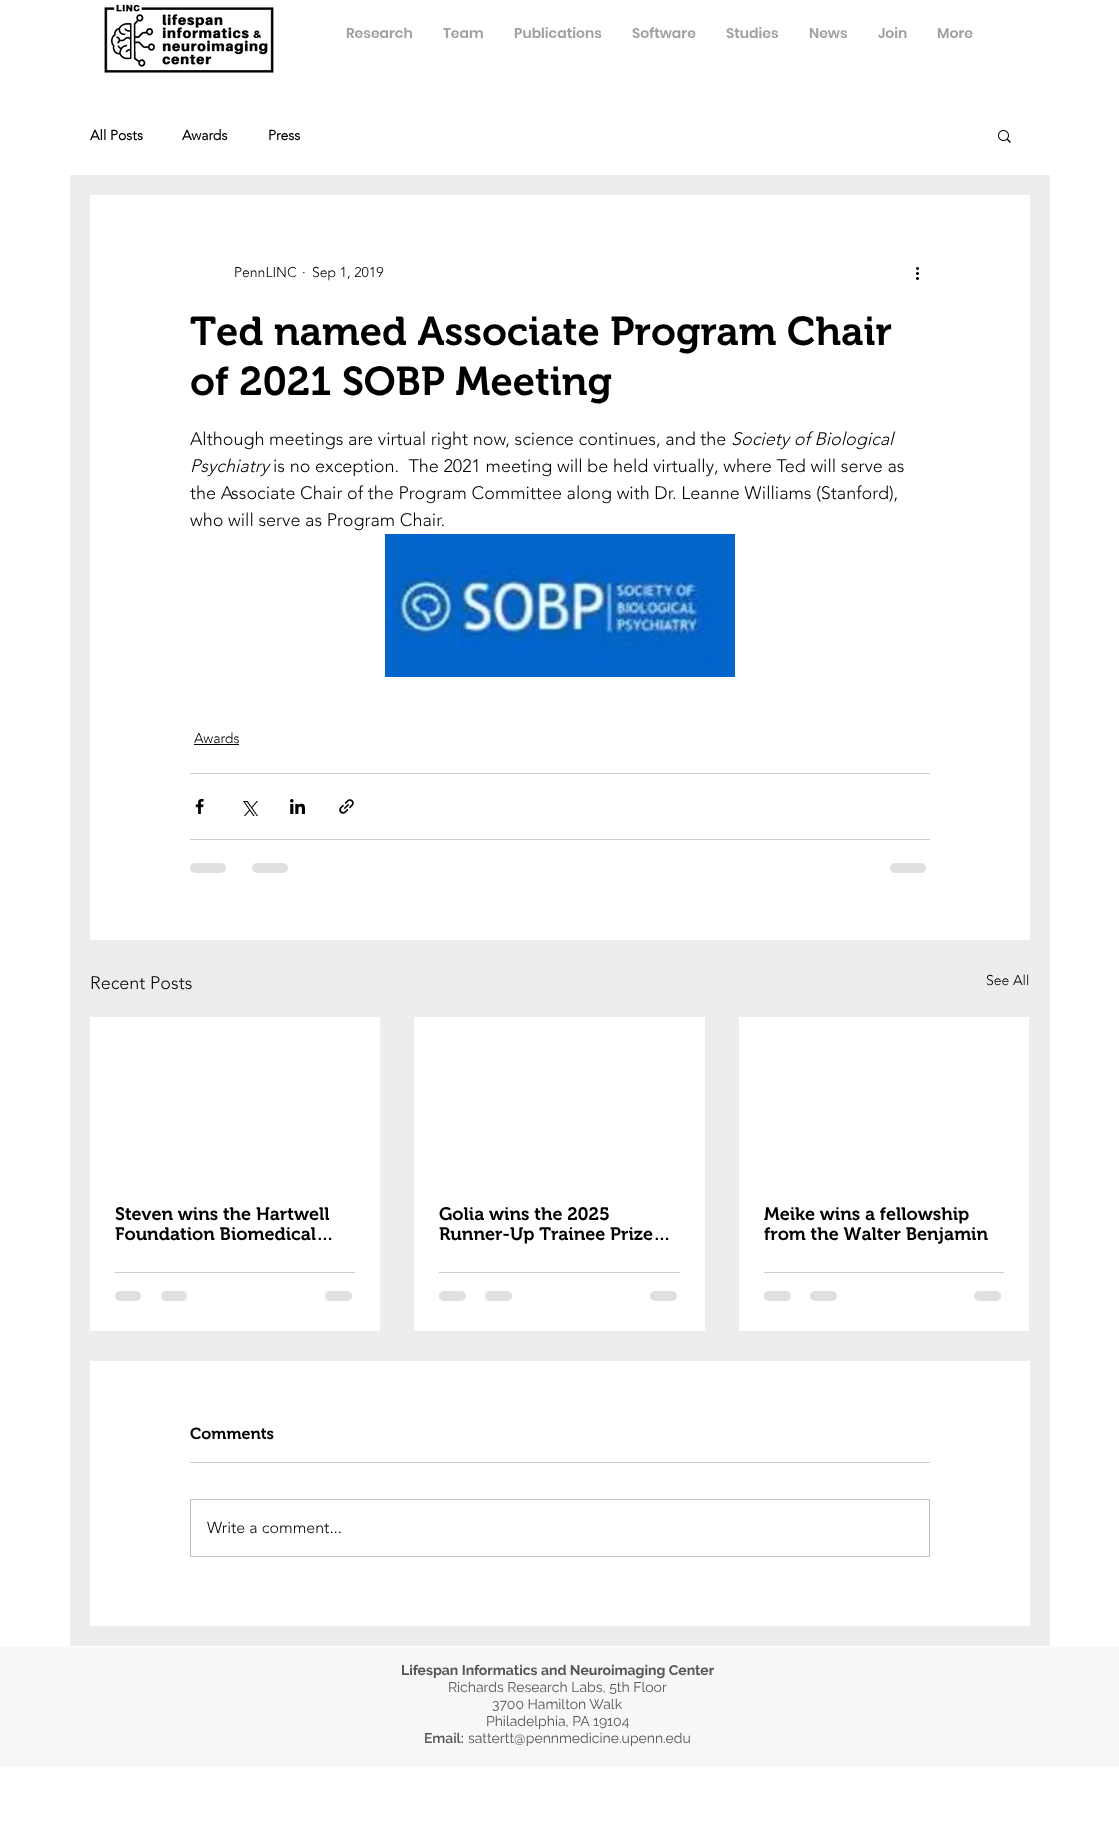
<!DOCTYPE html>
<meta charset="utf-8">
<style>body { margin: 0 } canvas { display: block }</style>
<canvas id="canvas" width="1119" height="1823"></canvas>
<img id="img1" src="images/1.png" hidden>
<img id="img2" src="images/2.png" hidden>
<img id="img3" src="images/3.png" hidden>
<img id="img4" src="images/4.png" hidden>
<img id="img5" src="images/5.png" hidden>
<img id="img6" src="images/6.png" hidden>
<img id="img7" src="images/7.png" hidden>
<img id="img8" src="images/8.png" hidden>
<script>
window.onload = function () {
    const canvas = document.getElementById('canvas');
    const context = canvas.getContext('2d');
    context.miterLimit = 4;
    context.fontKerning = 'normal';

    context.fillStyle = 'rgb(255, 255, 255)';
    context.fillRect(0, 0, 1119, 1823);
    context.drawImage(document.getElementById('img1'), 104, 4, 170, 69);
    context.fillStyle = 'rgb(237, 237, 237)';
    context.fillRect(70, 175, 980, 1471);
    context.drawImage(document.getElementById('img2'), 998, 130, 13, 13);
    context.fillStyle = 'rgb(255, 255, 255)';
    context.fillRect(90, 195, 940, 745);
    context.drawImage(document.getElementById('img3'), 916, 267, 3, 13);
    context.drawImage(document.getElementById('img4'), 385, 534, 350, 143);
    context.fillStyle = 'rgb(0, 0, 0)';
    context.fillRect(194, 744, 45, 1);
    context.fillStyle = 'rgb(204, 204, 204)';
    context.fillRect(190, 773, 740, 1);
    context.drawImage(document.getElementById('img5'), 195, 799, 9, 15);
    context.drawImage(document.getElementById('img6'), 243, 801, 15, 15);
    context.drawImage(document.getElementById('img7'), 290, 799, 15, 15);
    context.drawImage(document.getElementById('img8'), 339, 799, 15, 15);
    context.fillRect(190, 839, 740, 1);
    context.fillStyle = 'rgb(224, 224, 224)';
    context.beginPath();
    context.roundRect(190, 863, 36, 10, 5);
    context.fill();
    context.beginPath();
    context.roundRect(252, 863, 36, 10, 5);
    context.fill();
    context.beginPath();
    context.roundRect(890, 863, 36, 10, 5);
    context.fill();
    context.fillStyle = 'rgb(255, 255, 255)';
    context.fillRect(90, 1017, 290, 314);
    context.fillStyle = 'rgb(204, 204, 204)';
    context.fillRect(115, 1272, 240, 1);
    context.fillStyle = 'rgb(224, 224, 224)';
    context.beginPath();
    context.roundRect(115, 1291, 26, 10, 5);
    context.fill();
    context.beginPath();
    context.roundRect(161, 1291, 26, 10, 5);
    context.fill();
    context.beginPath();
    context.roundRect(325, 1291, 27, 10, 5);
    context.fill();
    context.fillStyle = 'rgb(255, 255, 255)';
    context.fillRect(414, 1017, 291, 314);
    context.fillStyle = 'rgb(204, 204, 204)';
    context.fillRect(439, 1272, 241, 1);
    context.fillStyle = 'rgb(224, 224, 224)';
    context.beginPath();
    context.roundRect(439, 1291, 27, 10, 5);
    context.fill();
    context.beginPath();
    context.roundRect(485, 1291, 27, 10, 5);
    context.fill();
    context.beginPath();
    context.roundRect(650, 1291, 27, 10, 5);
    context.fill();
    context.fillStyle = 'rgb(255, 255, 255)';
    context.fillRect(739, 1017, 290, 314);
    context.fillStyle = 'rgb(204, 204, 204)';
    context.fillRect(764, 1272, 240, 1);
    context.fillStyle = 'rgb(224, 224, 224)';
    context.beginPath();
    context.roundRect(764, 1291, 27, 10, 5);
    context.fill();
    context.beginPath();
    context.roundRect(810, 1291, 27, 10, 5);
    context.fill();
    context.beginPath();
    context.roundRect(974, 1291, 27, 10, 5);
    context.fill();
    context.fillStyle = 'rgb(255, 255, 255)';
    context.fillRect(90, 1361, 940, 265);
    context.fillStyle = 'rgb(204, 204, 204)';
    context.fillRect(190, 1462, 740, 1);
    context.strokeStyle = 'rgb(185, 194, 202)';
    context.strokeRect(190.5, 1499.5, 739, 57);
    context.fillStyle = 'rgb(247, 247, 247)';
    context.fillRect(0, 1647, 1119, 120);
    context.font = '600 14px Poppins';
    context.fillStyle = 'rgb(160, 160, 159)';
    context.fillText('Research', 346, 38);
    context.fillText('Team', 443, 38);
    context.fillText('Publications', 514, 38);
    context.fillText('Software', 632, 38);
    context.fillText('Studies', 726, 38);
    context.fillText('News', 809, 38);
    context.fillText('Join', 878, 38);
    context.fillText('More', 937, 38);
    context.font = 'bold 14px "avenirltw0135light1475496"';
    context.fillStyle = 'rgb(0, 0, 0)';
    context.fillText('All Posts', 90, 140);
    context.fillText('Awards', 182, 140);
    context.fillText('Press', 268, 140);
    context.font = '300 14px "avenirltw0135light1475496"';
    context.fillText('PennLINC', 234, 277);
    context.fillText('·', 302, 277);
    context.fillText('Sep 1, 2019', 312, 277);
    context.font = '600 40px "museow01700"';
    context.fillText('Ted named Associate Program Chair', 190, 345);
    context.fillText('of 2021 SOBP Meeting', 190, 395);
    context.font = '300 18px "avenirltw0135light1475496"';
    context.fillText('Although meetings are virtual right now, science continues, and the', 190, 445);
    context.font = 'italic 300 18px "avenirltw0135light1475496"';
    context.fillText('Society of Biological', 731, 445);
    context.fillText('Psychiatry', 190, 472);
    context.font = '300 18px "avenirltw0135light1475496"';
    context.fillText('is no exception.  The 2021 meeting will be held virtually, where Ted will serve as', 273, 472);
    context.fillText('the Associate Chair of the Program Committee along with Dr. Leanne Williams (Stanford),', 190, 499);
    context.fillText('who will serve as Program Chair.', 190, 526);
    context.font = '300 14px "avenirltw0135light1475496"';
    context.fillText('Awards', 194, 743);
    context.font = '300 18px "avenirltw0135light1475496"';
    context.fillText('Recent Posts', 90, 989);
    context.font = '300 14px "avenirltw0135light1475496"';
    context.fillText('See All', 986, 985);
    context.font = '600 18px "museow01700"';
    context.fillText('Steven wins the Hartwell', 115, 1220);
    context.fillText('Foundation Biomedical…', 115, 1240);
    context.fillText('Golia wins the 2025', 439, 1220);
    context.fillText('Runner-Up Trainee Prize…', 439, 1240);
    context.fillText('Meike wins a fellowship', 764, 1220);
    context.fillText('from the Walter Benjamin', 764, 1240);
    context.font = '600 16px "museow01700"';
    context.fillText('Comments', 190, 1439);
    context.font = '300 16px "avenirltw0135light1475496"';
    context.fillText('Write a comment...', 207, 1533);
    context.font = 'bold 14px Raleway';
    context.fillStyle = 'rgb(86, 86, 86)';
    context.fillText('Lifespan Informatics and Neuroimaging Center', 401, 1675);
    context.font = '14px Raleway';
    context.fillText('Richards Research Labs, 5th Floor', 448, 1692);
    context.fillText('3700 Hamilton Walk', 492, 1709);
    context.fillText('Philadelphia, PA 19104', 486, 1726);
    context.font = '600 14px Raleway';
    context.fillText('Email:', 424, 1743);
    context.font = '14px Raleway';
    context.fillText('sattertt@pennmedicine.upenn.edu', 468, 1743);
};
</script>
